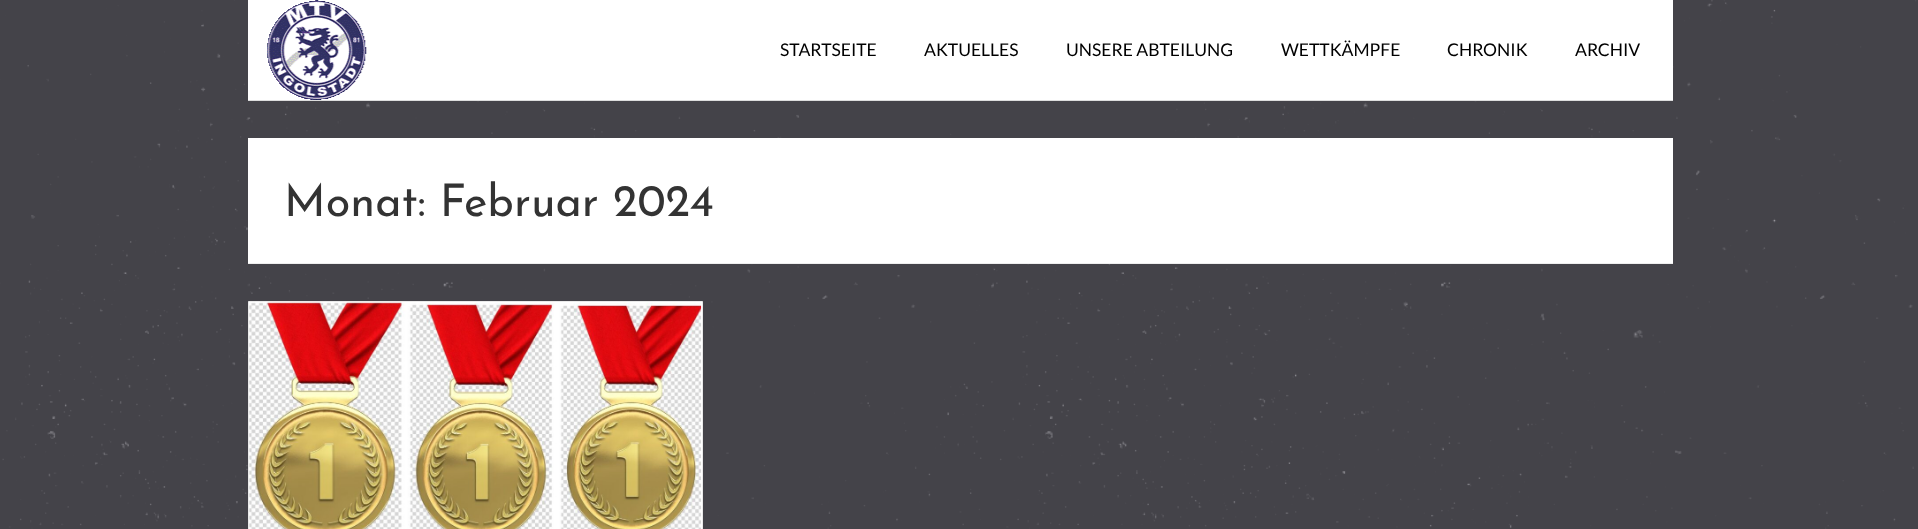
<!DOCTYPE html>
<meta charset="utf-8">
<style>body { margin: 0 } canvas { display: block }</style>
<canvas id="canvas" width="1918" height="529"></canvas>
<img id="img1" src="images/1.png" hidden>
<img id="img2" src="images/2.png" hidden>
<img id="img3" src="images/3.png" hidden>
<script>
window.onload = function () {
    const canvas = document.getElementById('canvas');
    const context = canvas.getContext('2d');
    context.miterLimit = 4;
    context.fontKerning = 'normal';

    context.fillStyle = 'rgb(255, 255, 255)';
    context.fillRect(0, 0, 1918, 529);
    context.drawImage(document.getElementById('img1'), 0, 0, 1918, 529);
    context.fillRect(248, 0, 1425, 100);
    context.fillStyle = 'rgb(221, 221, 221)';
    context.fillRect(248, 100, 1425, 1);
    context.drawImage(document.getElementById('img2'), 267, 0, 100, 100);
    context.fillStyle = 'rgb(255, 255, 255)';
    context.fillRect(248, 138, 1425, 125);
    context.fillStyle = 'rgb(238, 238, 238)';
    context.fillRect(248, 263, 1425, 1);
    context.fillStyle = 'rgb(255, 255, 255)';
    context.beginPath();
    context.rect(248.5, 301.5, 454, 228);
    context.fill();
    context.strokeStyle = 'rgb(234, 234, 234)';
    context.stroke();
    context.drawImage(document.getElementById('img3'), 249, 302, 453, 227);
    context.font = '17.5px Lato';
    context.fillStyle = 'rgb(0, 0, 0)';
    context.fillText('STARTSEITE', 780, 56);
    context.fillText('AKTUELLES', 924, 56);
    context.fillText('UNSERE ABTEILUNG', 1066, 56);
    context.fillText('WETTKÄMPFE', 1281, 56);
    context.fillText('CHRONIK', 1447, 56);
    context.fillText('ARCHIV', 1575, 56);
    context.font = '45px Josefin Sans';
    context.fillStyle = 'rgb(51, 51, 51)';
    context.fillText('Monat: Februar 2024', 284, 216);
};
</script>
